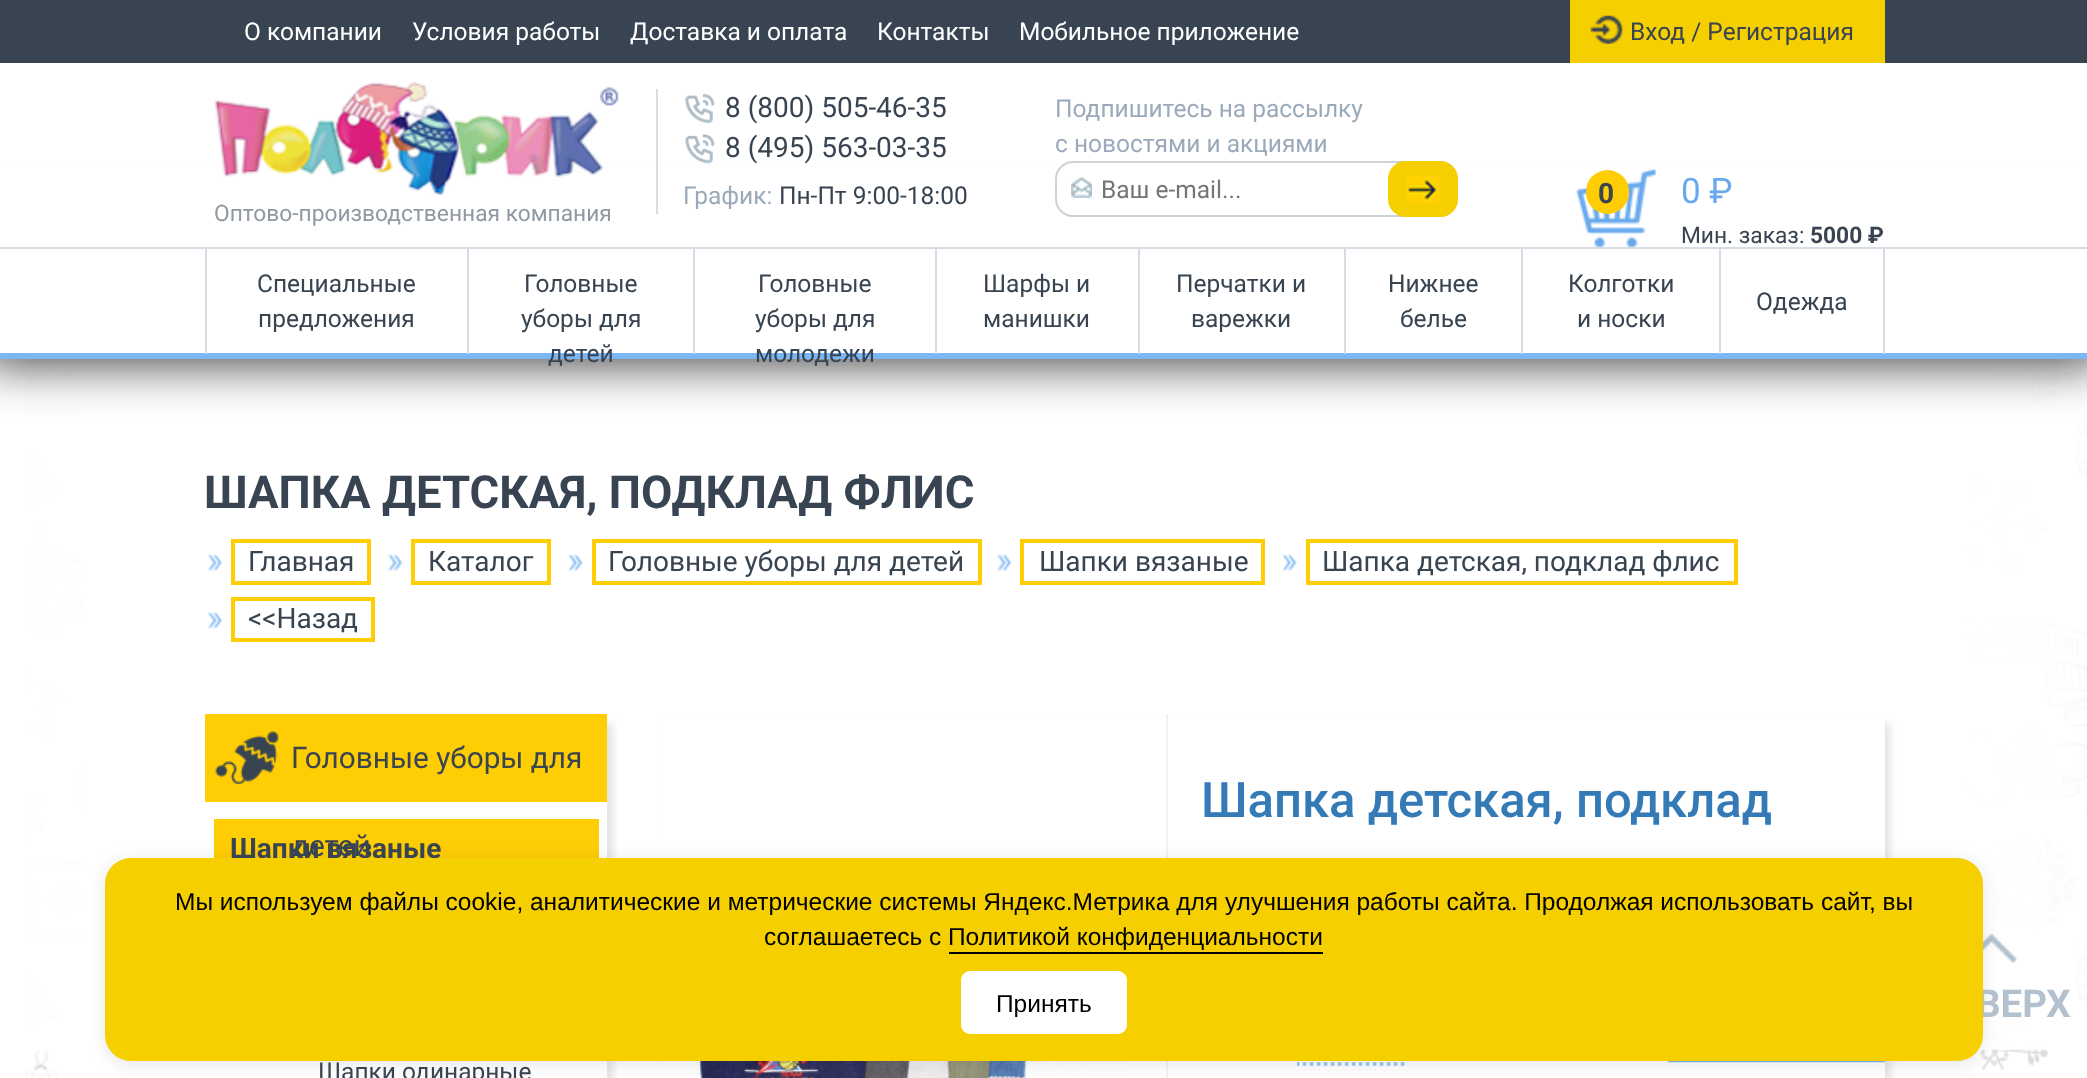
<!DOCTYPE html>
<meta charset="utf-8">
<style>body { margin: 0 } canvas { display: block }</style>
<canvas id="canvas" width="2087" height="1078"></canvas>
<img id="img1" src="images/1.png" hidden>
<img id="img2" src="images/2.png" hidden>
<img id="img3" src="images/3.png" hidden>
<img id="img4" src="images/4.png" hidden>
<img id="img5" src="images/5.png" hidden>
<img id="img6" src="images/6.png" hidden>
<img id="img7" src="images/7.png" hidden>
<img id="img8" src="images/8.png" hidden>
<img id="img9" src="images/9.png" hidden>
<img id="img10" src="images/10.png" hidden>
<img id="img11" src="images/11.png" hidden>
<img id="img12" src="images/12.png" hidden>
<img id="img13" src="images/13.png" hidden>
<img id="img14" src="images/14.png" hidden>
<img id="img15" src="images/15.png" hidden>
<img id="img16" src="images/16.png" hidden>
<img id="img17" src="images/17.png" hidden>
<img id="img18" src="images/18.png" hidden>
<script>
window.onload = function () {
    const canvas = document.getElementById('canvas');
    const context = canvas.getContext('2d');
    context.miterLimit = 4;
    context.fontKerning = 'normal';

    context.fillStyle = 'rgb(255, 255, 255)';
    context.fillRect(0, 0, 2087, 1078);
    context.drawImage(document.getElementById('img1'), 25, 373, 2062, 705);
    context.fillStyle = 'rgb(56, 68, 81)';
    context.fillRect(0, 0, 2087, 63);
    context.fillStyle = 'rgb(246, 207, 1)';
    context.fillRect(1570, 0, 315, 63);
    context.drawImage(document.getElementById('img2'), 1590, 15, 33, 29);
    context.fillStyle = 'rgba(0, 0, 0, 0.75)';
    context.filter = 'blur(24.5px)';
    context.beginPath();
    context.rect(-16, 221, 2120, 143);
    context.fill();
    context.filter = 'none';
    context.fillStyle = 'rgb(255, 255, 255)';
    context.fillRect(0, 167, 2087, 80);
    context.fillStyle = 'rgb(215, 221, 228)';
    context.fillRect(656, 89, 2, 125);
    context.drawImage(document.getElementById('img3'), 685, 93, 30, 31);
    context.drawImage(document.getElementById('img4'), 685, 134, 30, 30);
    context.drawImage(document.getElementById('img5'), 1071, 176, 21, 22);
    context.beginPath();
    context.roundRect(1056, 162, 401, 54, 17);
    context.strokeStyle = 'rgb(205, 210, 215)';
    context.lineWidth = 2;
    context.stroke();
    context.fillStyle = 'rgb(246, 207, 1)';
    context.beginPath();
    context.roundRect(1388, 161, 70, 56, 18);
    context.fill();
    context.drawImage(document.getElementById('img6'), 1405, 175, 35, 28);
    context.drawImage(document.getElementById('img7'), 214, 81, 405, 115);
    context.drawImage(document.getElementById('img8'), 1576, 169, 80, 78);
    context.fillStyle = 'rgb(255, 205, 4)';
    context.beginPath();
    context.roundRect(1586, 170, 43, 44, 21.5);
    context.fill();
    context.fillStyle = 'rgb(255, 255, 255)';
    context.fillRect(0, 249, 2087, 104);
    context.fillStyle = 'rgb(123, 183, 245)';
    context.fillRect(0, 353, 2087, 6);
    context.fillStyle = 'rgb(215, 221, 228)';
    context.fillRect(0, 247, 2087, 2);
    context.fillRect(205, 249, 2, 105);
    context.fillRect(467, 249, 2, 105);
    context.fillRect(693, 249, 2, 105);
    context.fillRect(935, 249, 2, 105);
    context.fillRect(1138, 249, 2, 105);
    context.fillRect(1344, 249, 2, 105);
    context.fillRect(1521, 249, 2, 105);
    context.fillRect(1883, 249, 2, 105);
    context.fillRect(1719, 249, 2, 105);
    context.strokeStyle = 'rgb(255, 205, 4)';
    context.lineWidth = 4;
    context.strokeRect(233, 541, 136, 42);
    context.drawImage(document.getElementById('img9'), 208, 554, 15, 17);
    context.strokeRect(413, 541, 136, 42);
    context.drawImage(document.getElementById('img10'), 388, 554, 15, 17);
    context.strokeRect(594, 541, 386, 42);
    context.drawImage(document.getElementById('img11'), 568, 554, 15, 17);
    context.strokeRect(1022, 541, 241, 42);
    context.drawImage(document.getElementById('img10'), 997, 554, 15, 17);
    context.strokeRect(1308, 541, 428, 42);
    context.drawImage(document.getElementById('img12'), 1282, 554, 15, 17);
    context.strokeRect(233, 599, 140, 41);
    context.drawImage(document.getElementById('img13'), 208, 612, 15, 17);
    context.save();
    context.beginPath();
    context.rect(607, 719, 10, 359);
    context.clip();
    context.fillStyle = 'rgba(0, 0, 0, 0.11)';
    context.filter = 'blur(4.5px)';
    context.beginPath();
    context.rect(210, 723, 403, 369);
    context.fill();
    context.filter = 'none';
    context.restore();
    context.fillStyle = 'rgb(255, 205, 4)';
    context.fillRect(205, 714, 402, 88);
    context.drawImage(document.getElementById('img14'), 215, 731, 64, 53);
    context.fillRect(214, 819, 385, 39);
    context.fillStyle = 'rgba(0, 0, 0, 0.11)';
    context.filter = 'blur(4.5px)';
    context.beginPath();
    context.rect(665, 723, 1225, 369);
    context.fill();
    context.filter = 'none';
    context.fillStyle = 'rgb(255, 255, 255)';
    context.fillRect(660, 717, 1225, 361);
    context.fillStyle = 'rgb(242, 242, 241)';
    context.fillRect(1166, 714, 2, 364);
    context.drawImage(document.getElementById('img15'), 697, 1061, 433, 17);
    context.drawImage(document.getElementById('img16'), 1297, 1062, 108, 4);
    context.drawImage(document.getElementById('img17'), 1666, 1061, 219, 2);
    context.drawImage(document.getElementById('img18'), 1983, 933, 35, 30);
    context.fillStyle = 'rgba(0, 0, 0, 0.1)';
    context.filter = 'blur(9px)';
    context.beginPath();
    context.roundRect(105, 861, 1878, 203, 26);
    context.fill();
    context.filter = 'none';
    context.font = '24.5px Roboto';
    context.fillStyle = 'rgb(255, 255, 255)';
    context.fillText('О компании', 244, 40);
    context.fillText('Условия работы', 412, 40);
    context.fillText('Доставка и оплата', 630, 40);
    context.fillText('Контакты', 877, 40);
    context.fillText('Мобильное приложение', 1019, 40);
    context.fillStyle = 'rgb(56, 68, 81)';
    context.fillText('Вход / Регистрация', 1630, 40);
    context.font = '28px Roboto';
    context.fillText('8 (800) 505-46-35', 725, 117);
    context.fillText('8 (495) 563-03-35', 725, 157);
    context.font = '24.5px Roboto';
    context.fillStyle = 'rgb(155, 170, 186)';
    context.fillText('График:', 683, 204);
    context.fillStyle = 'rgb(56, 68, 81)';
    context.fillText('Пн-Пт 9:00-18:00', 779, 204);
    context.fillStyle = 'rgb(155, 170, 186)';
    context.fillText('Подпишитесь на рассылку', 1055, 117);
    context.fillText('с новостями и акциями', 1055, 152);
    context.fillStyle = 'rgb(117, 117, 117)';
    context.fillText('Ваш e-mail...', 1101, 198);
    context.font = '22.75px Roboto';
    context.fillStyle = 'rgb(143, 153, 163)';
    context.fillText('Оптово-производственная компания', 214, 221);
    context.font = 'bold 28px Roboto';
    context.fillStyle = 'rgb(56, 68, 81)';
    context.fillText('0', 1598, 203);
    context.font = '35px Roboto';
    context.fillStyle = 'rgb(104, 169, 237)';
    context.fillText('0 ₽', 1681, 203);
    context.font = '22.75px Roboto';
    context.fillStyle = 'rgb(56, 68, 81)';
    context.fillText('Мин. заказ:', 1681, 243);
    context.font = 'bold 22.75px Roboto';
    context.fillText('5000 ₽', 1810, 243);
    context.font = '24.5px Roboto';
    context.fillText('Специальные', 257, 292);
    context.fillText('предложения', 258, 327);
    context.fillText('Головные', 524, 292);
    context.fillText('уборы для', 521, 327);
    context.fillText('детей', 548, 362);
    context.fillText('Головные', 758, 292);
    context.fillText('уборы для', 755, 327);
    context.fillText('молодежи', 755, 362);
    context.fillText('Шарфы и', 983, 292);
    context.fillText('манишки', 983, 327);
    context.fillText('Перчатки и', 1176, 292);
    context.fillText('варежки', 1191, 327);
    context.fillText('Нижнее', 1388, 292);
    context.fillText('белье', 1400, 327);
    context.fillText('Колготки', 1568, 292);
    context.fillText('и носки', 1577, 327);
    context.fillText('Одежда', 1756, 310);
    context.font = 'bold 45.5px Roboto';
    context.fillText('ШАПКА ДЕТСКАЯ, ПОДКЛАД ФЛИС', 204, 508);
    context.font = '28px Roboto';
    context.fillText('Главная', 248, 571);
    context.fillText('Каталог', 428, 571);
    context.fillText('Головные уборы для детей', 608, 571);
    context.fillText('Шапки вязаные', 1039, 571);
    context.fillText('Шапка детская, подклад флис', 1322, 571);
    context.fillText('<<Назад', 248, 628);
    context.font = '29.75px Roboto';
    context.fillText('Головные уборы для', 291, 768);
    context.font = 'bold 28px Roboto';
    context.fillText('Шапки вязаные', 230, 858);
    context.font = '29.75px Roboto';
    context.fillText('детей', 291, 856);
    context.font = '24.5px Roboto';
    context.fillText('Шапки одинарные', 318, 1080);
    context.font = '500 49px Roboto';
    context.fillStyle = 'rgb(51, 122, 183)';
    context.fillText('Шапка детская, подклад', 1201, 817);
    context.font = 'bold 38.5px Roboto';
    context.fillStyle = 'rgb(178, 193, 205)';
    context.fillText('ВЕРХ', 1976, 1017);
    context.fillStyle = 'rgb(246, 207, 1)';
    context.beginPath();
    context.roundRect(105, 858, 1878, 203, 26);
    context.fill();
    context.font = '24.5px Liberation Sans';
    context.fillStyle = 'rgb(0, 0, 0)';
    context.fillText('Мы используем файлы cookie, аналитические и метрические системы Яндекс.Метрика для улучшения работы сайта. Продолжая использовать сайт, вы', 175, 910);
    context.fillText('соглашаетесь с Политикой конфиденциальности', 764, 945);
    context.fillRect(949, 952, 374, 2);
    context.fillStyle = 'rgb(255, 255, 255)';
    context.beginPath();
    context.roundRect(961, 971, 166, 63, 9);
    context.fill();
    context.fillStyle = 'rgb(0, 0, 0)';
    context.fillText('Принять', 996, 1012);
};
</script>
